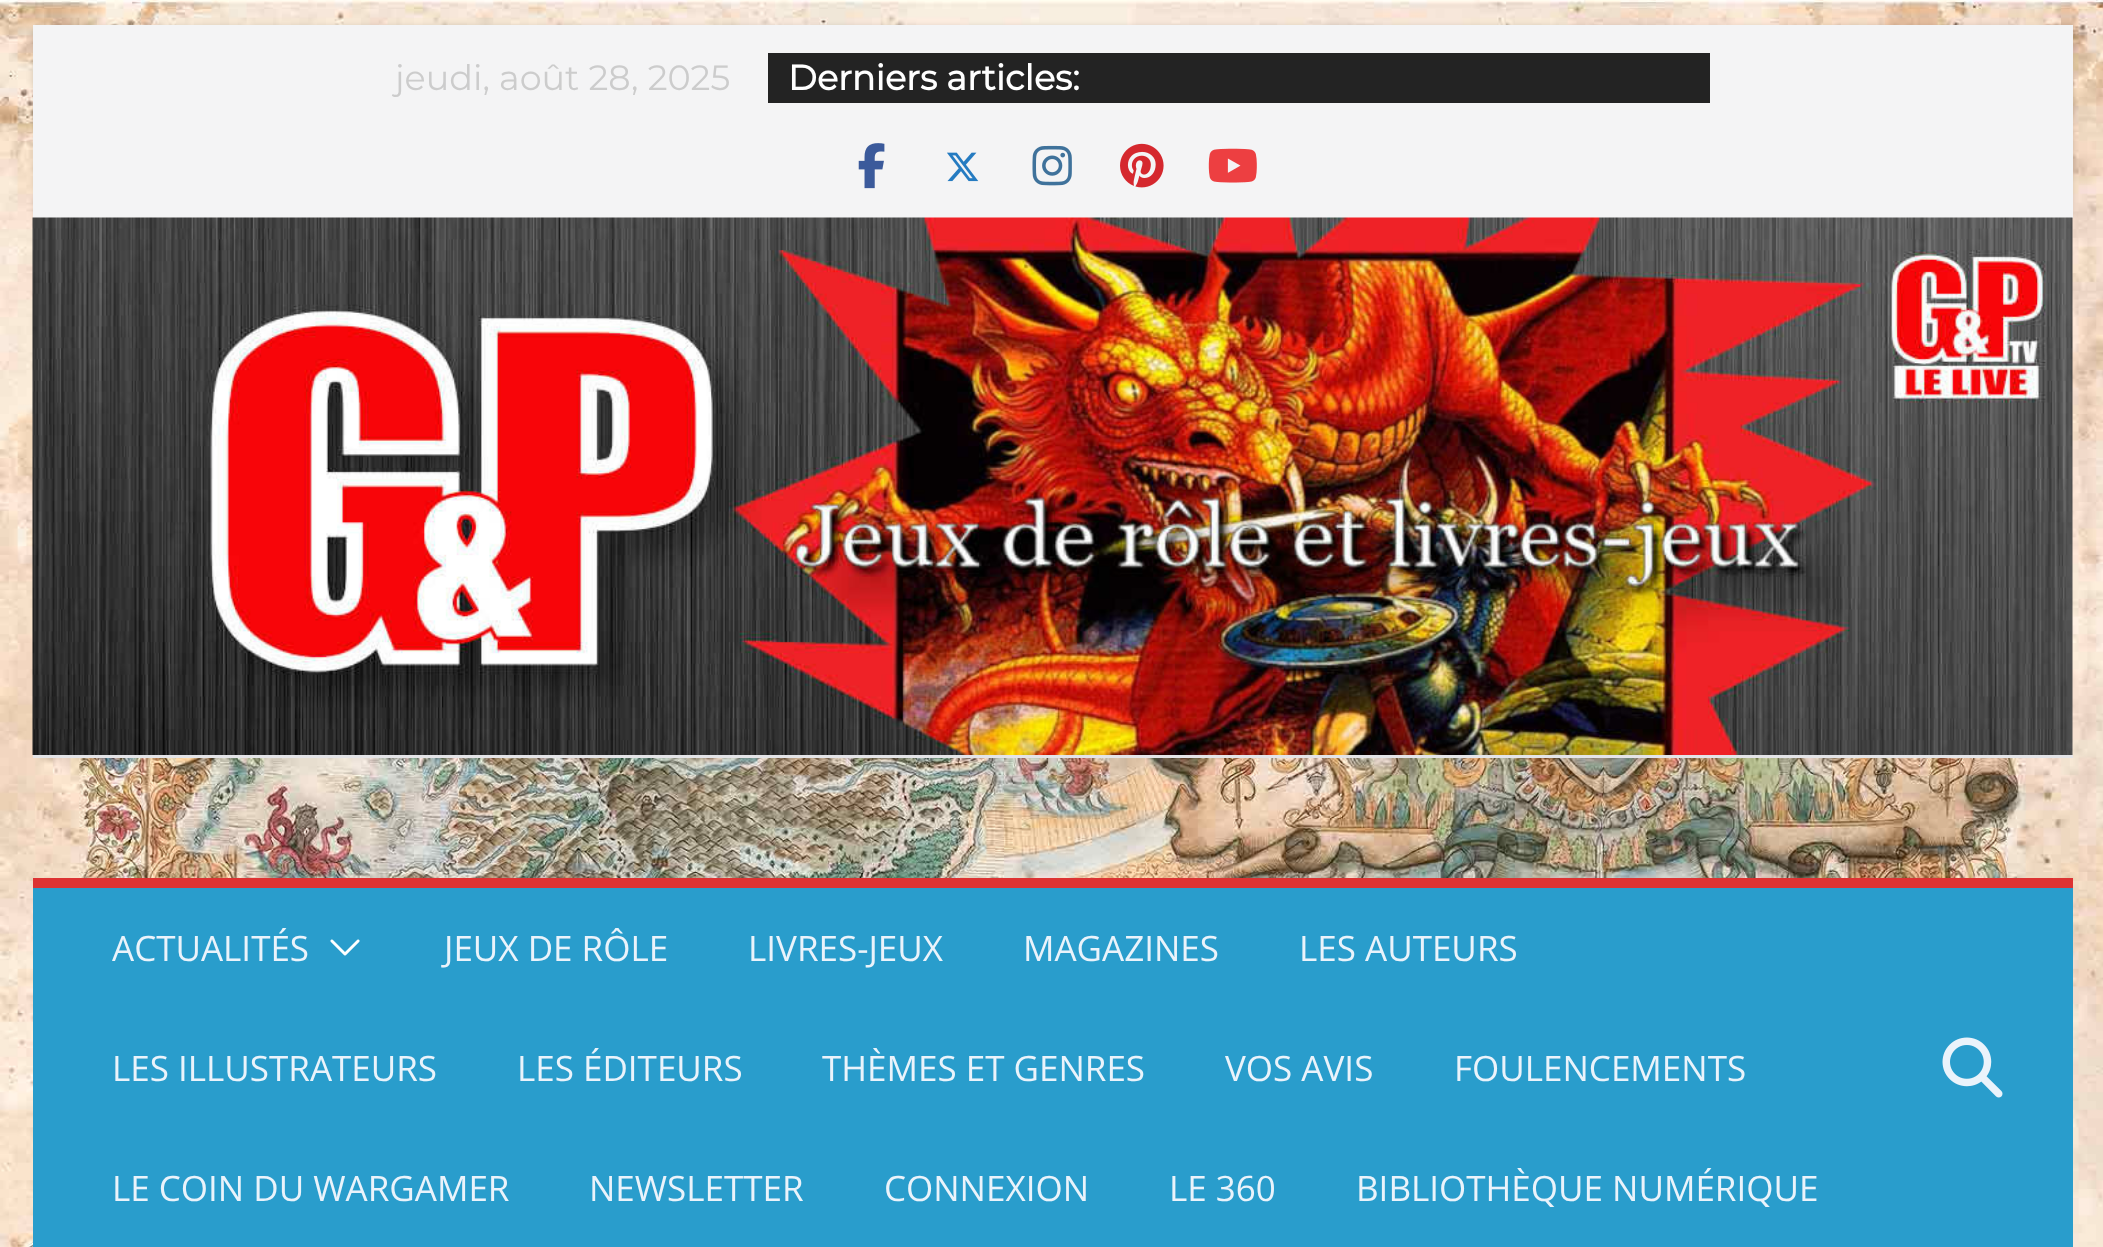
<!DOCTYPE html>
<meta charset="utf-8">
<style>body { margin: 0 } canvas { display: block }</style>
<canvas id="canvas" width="2103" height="1247"></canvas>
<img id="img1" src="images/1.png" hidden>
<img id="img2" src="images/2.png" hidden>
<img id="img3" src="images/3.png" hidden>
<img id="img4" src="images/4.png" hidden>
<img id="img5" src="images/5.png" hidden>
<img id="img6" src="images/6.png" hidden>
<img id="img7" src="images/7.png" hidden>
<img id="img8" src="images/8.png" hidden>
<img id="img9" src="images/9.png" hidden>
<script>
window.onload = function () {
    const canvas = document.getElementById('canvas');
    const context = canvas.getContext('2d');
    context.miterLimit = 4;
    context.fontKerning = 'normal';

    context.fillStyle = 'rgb(255, 255, 255)';
    context.fillRect(0, 0, 2103, 1247);
    context.drawImage(document.getElementById('img1'), 0, 0, 2103, 1247);
    context.fillStyle = 'rgba(0, 0, 0, 0.1)';
    context.filter = 'blur(2.5px)';
    context.beginPath();
    context.rect(33, 25, 2040, 193);
    context.fill();
    context.filter = 'none';
    context.fillStyle = 'rgb(244, 244, 245)';
    context.fillRect(33, 25, 2040, 193);
    context.fillStyle = 'rgb(35, 35, 35)';
    context.fillRect(768, 53, 942, 50);
    context.drawImage(document.getElementById('img2'), 858, 143, 27, 46);
    context.drawImage(document.getElementById('img3'), 947, 152, 32, 30);
    context.drawImage(document.getElementById('img4'), 1032, 145, 40, 41);
    context.drawImage(document.getElementById('img5'), 1120, 143, 44, 45);
    context.drawImage(document.getElementById('img6'), 1208, 148, 49, 35);
    context.drawImage(document.getElementById('img7'), 32, 217, 2041, 538);
    context.fillStyle = 'rgb(228, 228, 231)';
    context.fillRect(33, 755, 2040, 3);
    context.fillStyle = 'rgb(41, 157, 204)';
    context.fillRect(33, 888, 2040, 359);
    context.fillStyle = 'rgb(221, 51, 51)';
    context.fillRect(33, 878, 2040, 10);
    context.drawImage(document.getElementById('img8'), 330, 939, 30, 17);
    context.drawImage(document.getElementById('img9'), 1942, 1037, 61, 61);
    context.font = '100 35px Montserrat';
    context.fillStyle = 'rgb(204, 204, 204)';
    context.fillText('jeudi, août 28, 2025', 395, 90);
    context.font = 'bold 35px Montserrat';
    context.fillStyle = 'rgb(255, 255, 255)';
    context.fillText('Derniers articles:', 788, 90);
    context.font = '35px Open Sans';
    context.fillStyle = 'rgb(234, 243, 251)';
    context.fillText('ACTUALITÉS', 112, 961);
    context.fillText('JEUX DE RÔLE', 444, 961);
    context.fillText('LIVRES-JEUX', 748, 961);
    context.fillText('MAGAZINES', 1023, 961);
    context.fillText('LES AUTEURS', 1299, 961);
    context.fillText('LES ILLUSTRATEURS', 112, 1081);
    context.fillText('LES ÉDITEURS', 517, 1081);
    context.fillText('THÈMES ET GENRES', 822, 1081);
    context.fillText('VOS AVIS', 1225, 1081);
    context.fillText('FOULENCEMENTS', 1454, 1081);
    context.fillText('LE COIN DU WARGAMER', 112, 1201);
    context.fillText('NEWSLETTER', 589, 1201);
    context.fillText('CONNEXION', 884, 1201);
    context.fillText('LE 360', 1169, 1201);
    context.fillText('BIBLIOTHÈQUE NUMÉRIQUE', 1356, 1201);
};
</script>
